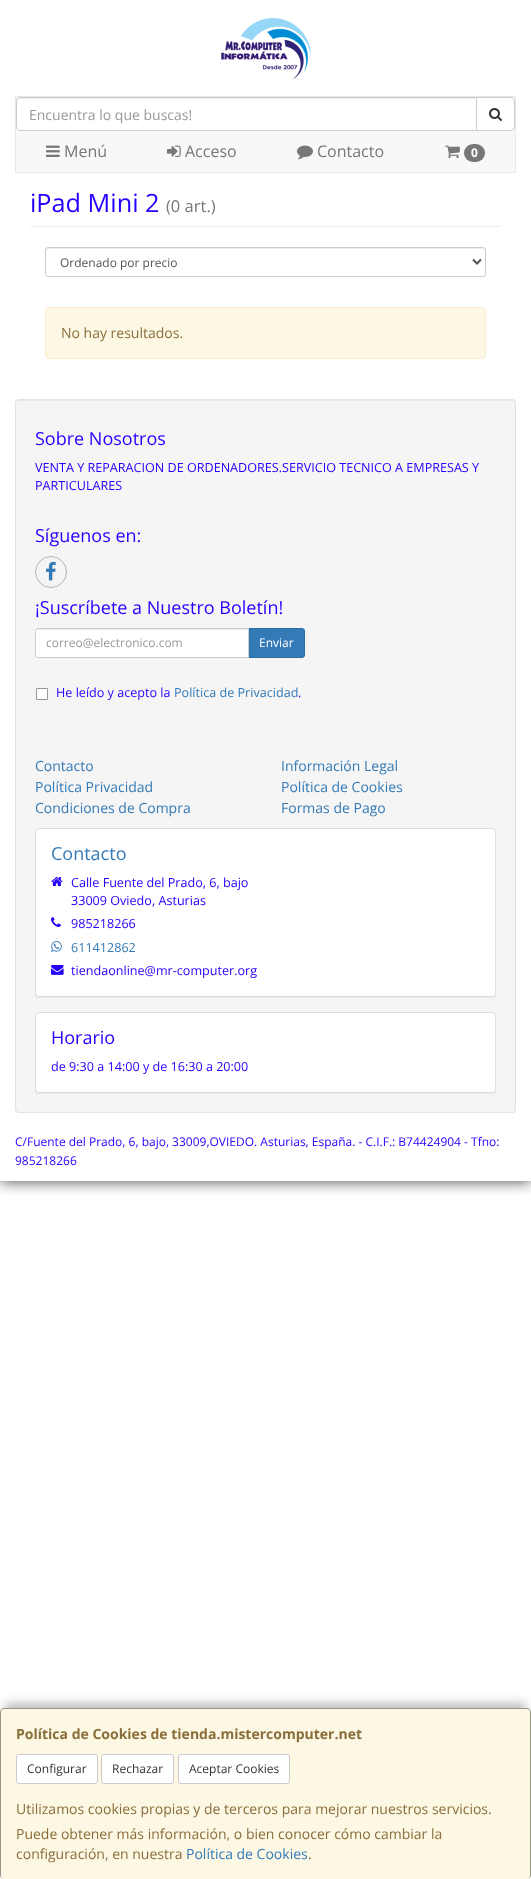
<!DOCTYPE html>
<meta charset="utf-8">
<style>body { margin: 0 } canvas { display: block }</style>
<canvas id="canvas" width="531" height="1879"></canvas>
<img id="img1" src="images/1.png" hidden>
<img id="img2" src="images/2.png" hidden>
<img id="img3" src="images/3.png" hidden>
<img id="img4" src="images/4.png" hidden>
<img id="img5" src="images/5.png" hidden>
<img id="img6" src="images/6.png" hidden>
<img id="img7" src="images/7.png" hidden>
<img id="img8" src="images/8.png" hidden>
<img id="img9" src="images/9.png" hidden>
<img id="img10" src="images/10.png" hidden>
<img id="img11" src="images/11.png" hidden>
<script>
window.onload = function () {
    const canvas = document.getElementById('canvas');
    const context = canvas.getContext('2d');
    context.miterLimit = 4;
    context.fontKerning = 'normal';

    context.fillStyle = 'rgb(255, 255, 255)';
    context.fillRect(0, 0, 531, 1879);
    context.save();
    context.beginPath();
    context.rect(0, 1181, 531, 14);
    context.clip();
    context.fillStyle = 'rgba(0, 0, 0, 0.75)';
    context.filter = 'blur(7.5px)';
    context.beginPath();
    context.rect(0, 0, 531, 1181);
    context.fill();
    context.filter = 'none';
    context.restore();
    context.drawImage(document.getElementById('img1'), 221, 18, 90, 61);
    context.fillStyle = 'rgb(248, 248, 248)';
    context.beginPath();
    context.rect(15.5, 96.5, 500, 76);
    context.fill();
    context.strokeStyle = 'rgb(231, 231, 231)';
    context.stroke();
    context.fillStyle = 'rgb(255, 255, 255)';
    context.beginPath();
    context.roundRect(476.5, 97.5, 38, 33, [0, 3.5, 3.5, 0]);
    context.fill();
    context.strokeStyle = 'rgb(204, 204, 204)';
    context.stroke();
    context.beginPath();
    context.roundRect(16, 97, 461, 34, [4, 0, 0, 4]);
    context.fill();
    context.fillStyle = 'rgb(236, 236, 236)';
    context.beginPath();
    context.moveTo(20, 99);
    context.lineTo(476, 99);
    context.lineTo(476, 98);
    context.lineTo(20, 98);
    context.bezierCurveTo(18, 98, 17, 100, 17, 102);
    context.bezierCurveTo(17, 100, 18, 99, 20, 99);
    context.closePath();
    context.fill();
    context.beginPath();
    context.roundRect(16.5, 97.5, 460, 33, [3.5, 0, 0, 3.5]);
    context.stroke();
    context.drawImage(document.getElementById('img2'), 489, 108, 13, 13);
    context.drawImage(document.getElementById('img3'), 46, 145, 14, 12);
    context.drawImage(document.getElementById('img4'), 167, 145, 14, 12);
    context.drawImage(document.getElementById('img5'), 297, 145, 16, 15);
    context.drawImage(document.getElementById('img6'), 445, 145, 15, 14);
    context.fillStyle = 'rgb(119, 119, 119)';
    context.beginPath();
    context.roundRect(464, 144, 21, 18, 9);
    context.fill();
    context.fillStyle = 'rgb(238, 238, 238)';
    context.fillRect(30, 226, 471, 1);
    context.fillStyle = 'rgb(236, 236, 236)';
    context.beginPath();
    context.moveTo(48, 249);
    context.lineTo(483, 249);
    context.bezierCurveTo(484, 249, 485, 250, 485, 251);
    context.lineTo(485, 249);
    context.lineTo(483, 248);
    context.lineTo(48, 248);
    context.bezierCurveTo(46, 248, 46, 250, 46, 251);
    context.bezierCurveTo(46, 250, 47, 249, 48, 249);
    context.closePath();
    context.fill();
    context.beginPath();
    context.roundRect(45.5, 247.5, 440, 29, 2.5);
    context.stroke();
    context.beginPath();
    context.moveTo(473, 259.5);
    context.lineTo(477, 263.5);
    context.lineTo(481, 259.5);
    context.strokeStyle = 'rgb(85, 85, 85)';
    context.lineWidth = 2;
    context.stroke();
    context.fillStyle = 'rgb(252, 248, 227)';
    context.beginPath();
    context.roundRect(45.5, 307.5, 440, 51, 3.5);
    context.fill();
    context.strokeStyle = 'rgb(250, 235, 204)';
    context.lineWidth = 1;
    context.stroke();
    context.fillStyle = 'rgb(245, 245, 245)';
    context.beginPath();
    context.roundRect(15, 399, 501, 714, 4);
    context.fill();
    context.fillStyle = 'rgb(233, 233, 233)';
    context.beginPath();
    context.moveTo(19, 401);
    context.lineTo(512, 401);
    context.bezierCurveTo(514, 401, 515, 402, 515, 404);
    context.lineTo(515, 403);
    context.bezierCurveTo(515, 401, 514, 400, 512, 400);
    context.lineTo(19, 400);
    context.bezierCurveTo(17, 400, 16, 401, 16, 403);
    context.lineTo(16, 404);
    context.bezierCurveTo(16, 402, 17, 401, 19, 401);
    context.closePath();
    context.fill();
    context.beginPath();
    context.roundRect(15.5, 399.5, 500, 713, 3.5);
    context.strokeStyle = 'rgb(227, 227, 227)';
    context.stroke();
    context.beginPath();
    context.arc(51, 572, 15.5, 0, 2 * Math.PI);
    context.strokeStyle = 'rgb(181, 181, 181)';
    context.stroke();
    context.drawImage(document.getElementById('img7'), 46, 561, 10, 20);
    context.fillStyle = 'rgb(51, 122, 183)';
    context.beginPath();
    context.roundRect(248.5, 628.5, 56, 29, [0, 2.5, 2.5, 0]);
    context.fill();
    context.strokeStyle = 'rgb(46, 109, 164)';
    context.stroke();
    context.fillStyle = 'rgb(255, 255, 255)';
    context.beginPath();
    context.roundRect(35, 628, 214, 30, [3, 0, 0, 3]);
    context.fill();
    context.fillStyle = 'rgb(236, 236, 236)';
    context.beginPath();
    context.moveTo(38, 630);
    context.lineTo(248, 630);
    context.lineTo(248, 629);
    context.lineTo(38, 629);
    context.lineTo(37, 630);
    context.lineTo(36, 632);
    context.bezierCurveTo(36, 631, 37, 630, 38, 630);
    context.closePath();
    context.fill();
    context.beginPath();
    context.roundRect(35.5, 628.5, 213, 29, [2.5, 0, 0, 2.5]);
    context.strokeStyle = 'rgb(204, 204, 204)';
    context.stroke();
    context.fillStyle = 'rgb(255, 255, 255)';
    context.beginPath();
    context.rect(36.5, 688.5, 11, 11);
    context.fill();
    context.strokeStyle = 'rgb(153, 153, 153)';
    context.stroke();
    context.fillStyle = 'rgba(0, 0, 0, 0.05)';
    context.filter = 'blur(0.5px)';
    context.beginPath();
    context.roundRect(35, 829, 461, 169, 4);
    context.fill();
    context.filter = 'none';
    context.fillStyle = 'rgb(255, 255, 255)';
    context.beginPath();
    context.roundRect(35.5, 828.5, 460, 168, 3.5);
    context.fill();
    context.strokeStyle = 'rgb(221, 221, 221)';
    context.stroke();
    context.drawImage(document.getElementById('img8'), 51, 877, 12, 9);
    context.drawImage(document.getElementById('img9'), 51, 917, 10, 10);
    context.drawImage(document.getElementById('img10'), 51, 941, 11, 11);
    context.drawImage(document.getElementById('img11'), 51, 965, 13, 10);
    context.fillStyle = 'rgba(0, 0, 0, 0.05)';
    context.filter = 'blur(0.5px)';
    context.beginPath();
    context.roundRect(35, 1013, 461, 81, 4);
    context.fill();
    context.filter = 'none';
    context.fillStyle = 'rgb(255, 255, 255)';
    context.beginPath();
    context.roundRect(35.5, 1012.5, 460, 80, 3.5);
    context.fill();
    context.stroke();
    context.fillStyle = 'rgba(0, 0, 0, 0.25)';
    context.filter = 'blur(5px)';
    context.beginPath();
    context.rect(5, 1703, 521, 161);
    context.fill();
    context.filter = 'none';
    context.fillStyle = 'rgb(252, 248, 227)';
    context.beginPath();
    context.roundRect(0, 1708, 531, 171, 4);
    context.fill();
    context.fillStyle = 'rgba(0, 0, 0, 0.4)';
    context.beginPath();
    context.moveTo(4, 1708);
    context.lineTo(527, 1708);
    context.bezierCurveTo(529, 1708, 531, 1710, 531, 1712);
    context.lineTo(531, 1875);
    context.bezierCurveTo(531, 1877, 529, 1879, 527, 1879);
    context.lineTo(4, 1879);
    context.bezierCurveTo(2, 1879, 0, 1877, 0, 1875);
    context.lineTo(0, 1712);
    context.bezierCurveTo(0, 1710, 2, 1708, 4, 1708);
    context.closePath();
    context.moveTo(4, 1709);
    context.lineTo(527, 1709);
    context.bezierCurveTo(529, 1709, 530, 1710, 530, 1712);
    context.lineTo(530, 1875);
    context.bezierCurveTo(530, 1877, 529, 1879, 527, 1879);
    context.lineTo(4, 1879);
    context.bezierCurveTo(2, 1879, 1, 1877, 1, 1875);
    context.lineTo(1, 1712);
    context.bezierCurveTo(1, 1710, 2, 1709, 4, 1709);
    context.closePath();
    context.fill('evenodd');
    context.fillStyle = 'rgb(255, 255, 255)';
    context.beginPath();
    context.roundRect(16.5, 1754.5, 81, 29, 2.5);
    context.fill();
    context.strokeStyle = 'rgb(204, 204, 204)';
    context.stroke();
    context.beginPath();
    context.roundRect(101.5, 1754.5, 72, 29, 2.5);
    context.fill();
    context.stroke();
    context.beginPath();
    context.roundRect(178.5, 1754.5, 111, 29, 2.5);
    context.fill();
    context.stroke();
    context.font = '14px Open Sans';
    context.fillStyle = 'rgb(153, 153, 153)';
    context.fillText('Encuentra lo que buscas!', 29, 120);
    context.font = '16px Open Sans';
    context.fillStyle = 'rgb(119, 119, 119)';
    context.fillText('Menú', 64, 157);
    context.fillText('Acceso', 185, 157);
    context.fillText('Contacto', 317, 157);
    context.font = 'bold 12px Open Sans';
    context.fillStyle = 'rgb(255, 255, 255)';
    context.fillText('0', 471, 157);
    context.font = '25.25px Open Sans';
    context.fillStyle = 'rgb(36, 0, 255)';
    context.fillText('iPad Mini 2', 30, 212);
    context.font = '16.5px Open Sans';
    context.fillStyle = 'rgb(119, 119, 119)';
    context.fillText('(0 art.)', 166, 212);
    context.font = '12px Open Sans';
    context.fillStyle = 'rgb(85, 85, 85)';
    context.fillText('Ordenado por precio', 60, 267);
    context.font = '14px Open Sans';
    context.fillStyle = 'rgb(138, 109, 59)';
    context.fillText('No hay resultados.', 61, 338);
    context.font = '18px Open Sans';
    context.fillStyle = 'rgb(36, 0, 255)';
    context.fillText('Sobre Nosotros', 35, 445);
    context.font = '12.6px Open Sans';
    context.fillText('VENTA Y REPARACION DE ORDENADORES.SERVICIO TECNICO A EMPRESAS Y', 35, 472);
    context.fillText('PARTICULARES', 35, 490);
    context.font = '18px Open Sans';
    context.fillText('Síguenos en:', 35, 542);
    context.fillText('¡Suscríbete a Nuestro Boletín!', 35, 614);
    context.font = '12px Open Sans';
    context.fillStyle = 'rgb(153, 153, 153)';
    context.fillText('correo@electronico.com', 46, 647);
    context.fillStyle = 'rgb(255, 255, 255)';
    context.fillText('Enviar', 259, 647);
    context.font = '12.6px Open Sans';
    context.fillStyle = 'rgb(36, 0, 255)';
    context.fillText('He leído y acepto la', 56, 697);
    context.fillStyle = 'rgb(51, 122, 183)';
    context.fillText('Política de Privacidad', 174, 697);
    context.fillStyle = 'rgb(36, 0, 255)';
    context.fillText('.', 298, 697);
    context.font = '14px Open Sans';
    context.fillStyle = 'rgb(51, 122, 183)';
    context.fillText('Contacto', 35, 771);
    context.fillText('Información Legal', 281, 771);
    context.fillText('Política Privacidad', 35, 792);
    context.fillText('Política de Cookies', 281, 792);
    context.fillText('Condiciones de Compra', 35, 813);
    context.fillText('Formas de Pago', 281, 813);
    context.font = '18px Open Sans';
    context.fillText('Contacto', 51, 860);
    context.font = '12.6px Open Sans';
    context.fillStyle = 'rgb(36, 0, 255)';
    context.fillText('Calle Fuente del Prado, 6, bajo', 71, 887);
    context.fillText('33009 Oviedo, Asturias', 71, 905);
    context.fillText('985218266', 71, 928);
    context.fillStyle = 'rgb(51, 122, 183)';
    context.fillText('611412862', 71, 952);
    context.fillStyle = 'rgb(36, 0, 255)';
    context.fillText('tiendaonline@mr-computer.org', 71, 975);
    context.font = '18px Open Sans';
    context.fillText('Horario', 51, 1044);
    context.font = '12.6px Open Sans';
    context.fillText('de 9:30 a 14:00 y de 16:30 a 20:00', 51, 1071);
    context.font = '12px Open Sans';
    context.fillText('C/Fuente del Prado, 6, bajo, 33009,OVIEDO. Asturias, España. - C.I.F.: B74424904 - Tfno:', 15, 1146);
    context.fillText('985218266', 15, 1165);
    context.font = 'bold 14px Open Sans';
    context.fillStyle = 'rgb(138, 109, 59)';
    context.fillText('Política de Cookies de tienda.mistercomputer.net', 16, 1739);
    context.font = '12px Open Sans';
    context.fillStyle = 'rgb(51, 51, 51)';
    context.fillText('Configurar', 27, 1773);
    context.fillText('Rechazar', 112, 1773);
    context.fillText('Aceptar Cookies', 189, 1773);
    context.font = '14px Open Sans';
    context.fillStyle = 'rgb(138, 109, 59)';
    context.fillText('Utilizamos cookies propias y de terceros para mejorar nuestros servicios.', 16, 1814);
    context.fillText('Puede obtener más información, o bien conocer cómo cambiar la', 16, 1839);
    context.fillText('configuración, en nuestra', 16, 1859);
    context.fillStyle = 'rgb(51, 122, 183)';
    context.fillText('Política de Cookies', 186, 1859);
    context.fillStyle = 'rgb(138, 109, 59)';
    context.fillText('.', 308, 1859);
};
</script>
